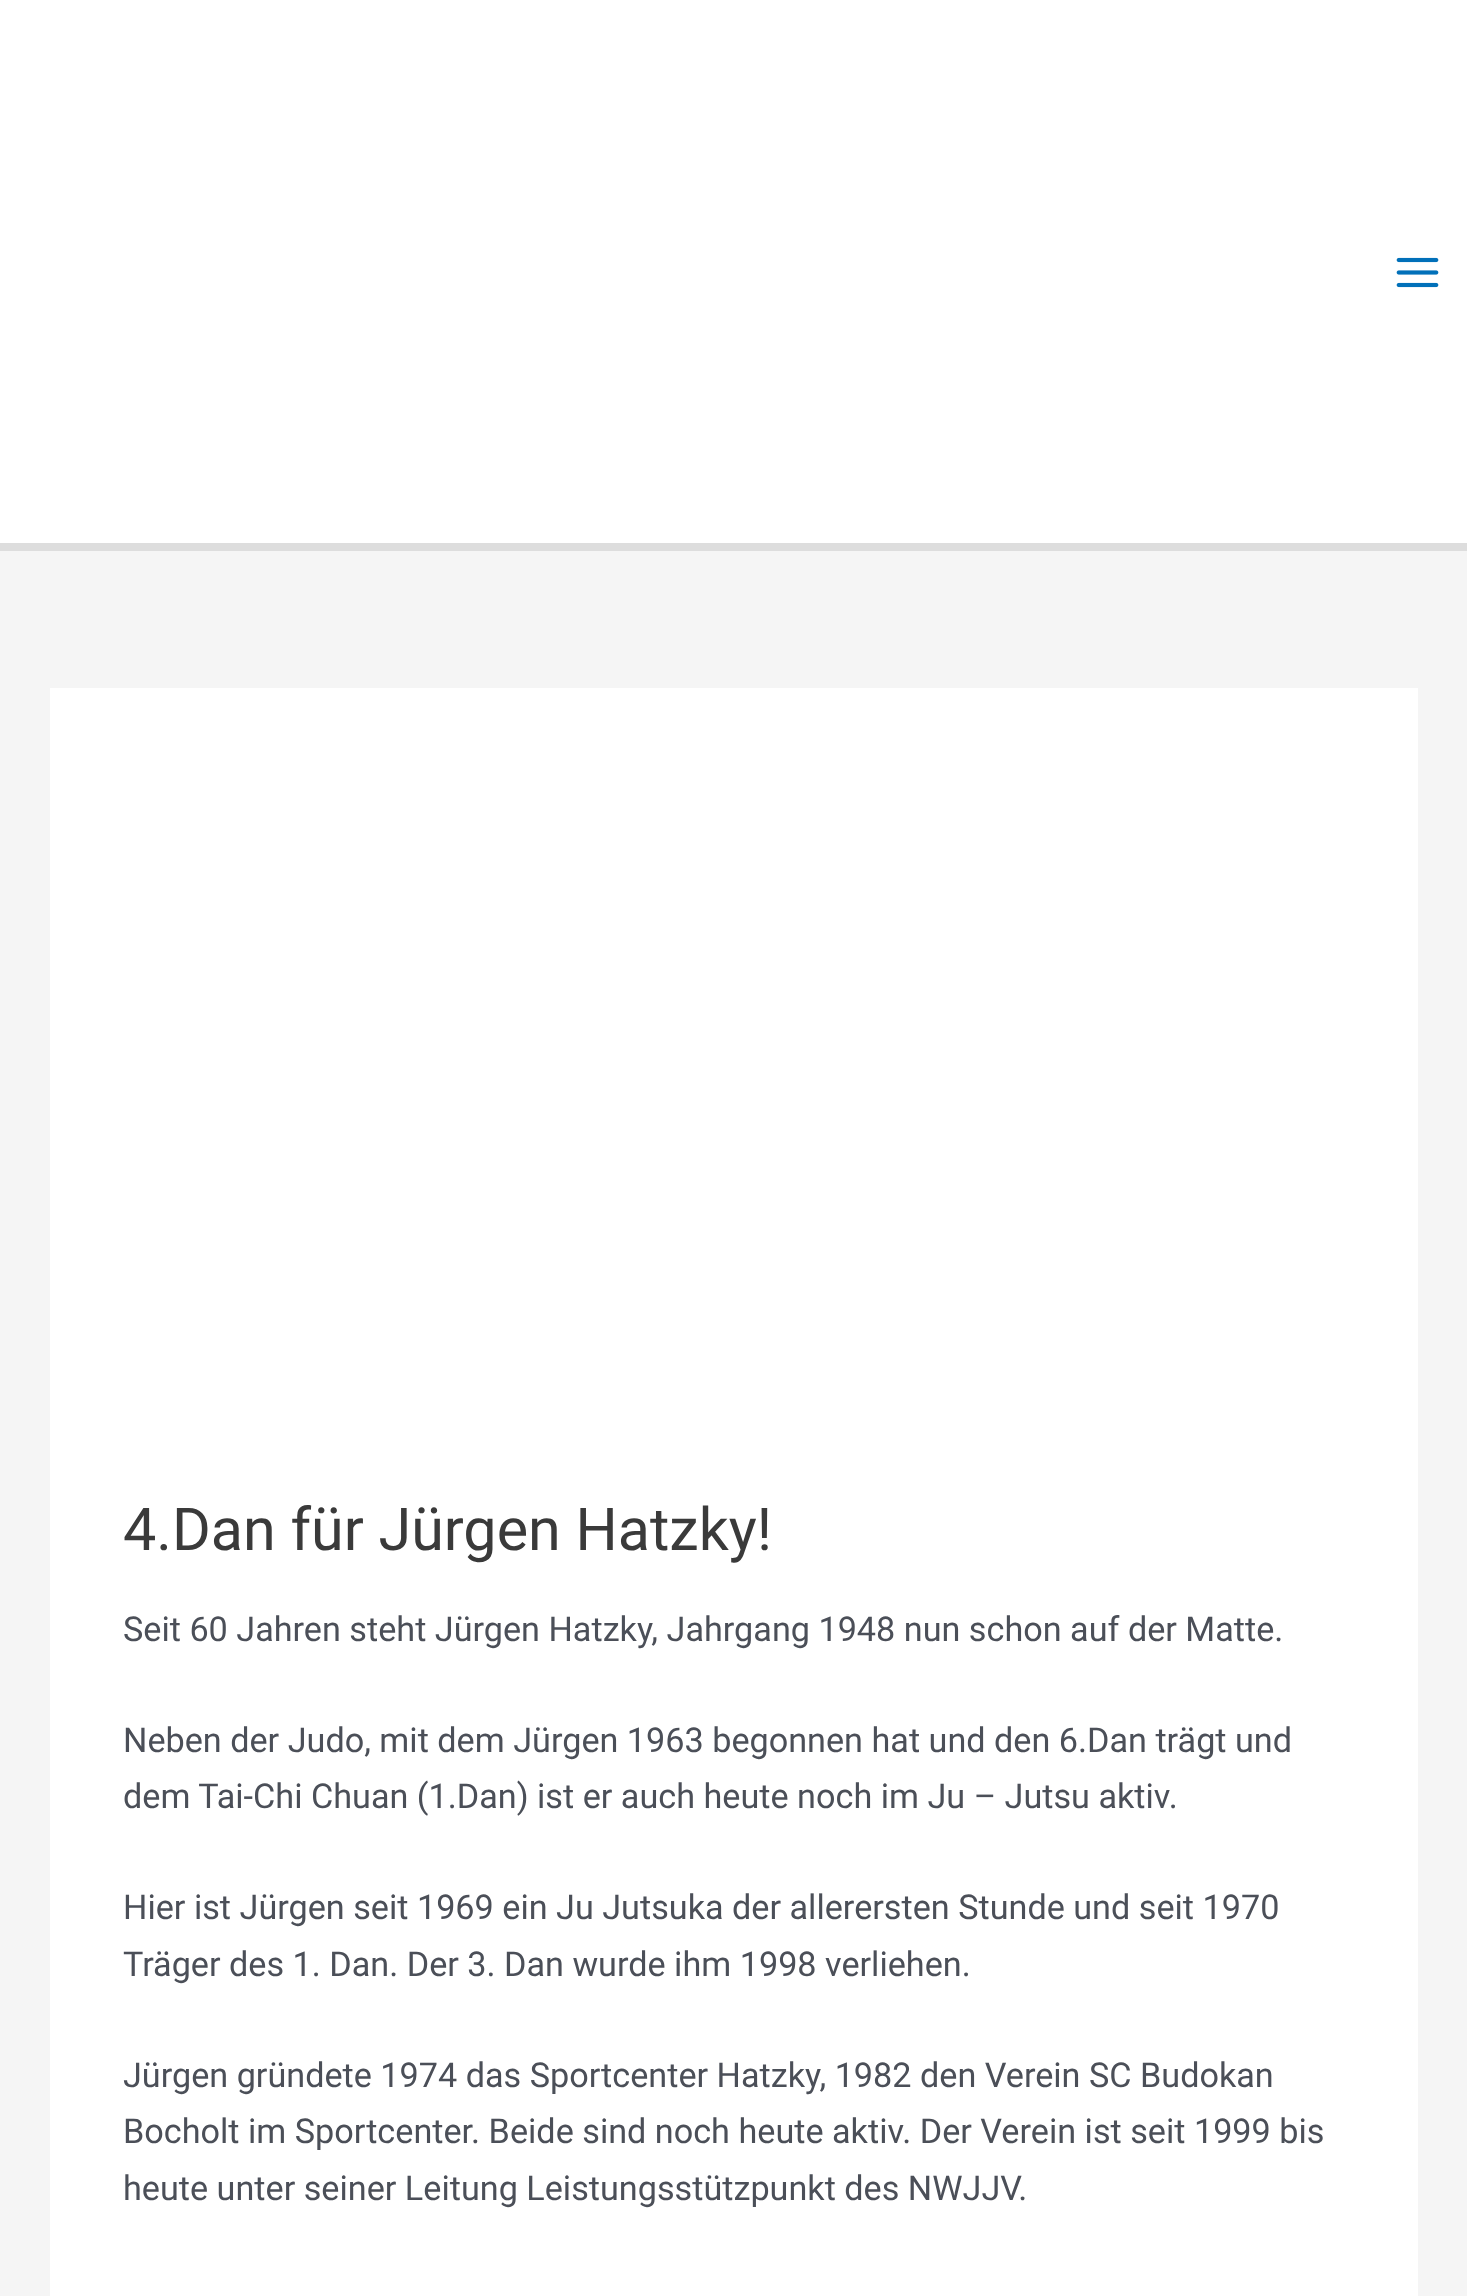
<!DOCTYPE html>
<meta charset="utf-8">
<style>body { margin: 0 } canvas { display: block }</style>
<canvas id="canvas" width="1467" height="2296"></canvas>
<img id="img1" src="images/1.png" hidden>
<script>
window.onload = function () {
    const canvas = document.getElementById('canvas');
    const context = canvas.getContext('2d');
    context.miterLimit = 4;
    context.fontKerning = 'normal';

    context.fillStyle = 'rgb(245, 245, 245)';
    context.fillRect(0, 0, 1467, 2296);
    context.fillStyle = 'rgb(255, 255, 255)';
    context.fillRect(0, 0, 1467, 543);
    context.fillStyle = 'rgb(221, 221, 221)';
    context.fillRect(0, 543, 1467, 8);
    context.drawImage(document.getElementById('img1'), 1396, 257, 43, 31);
    context.fillStyle = 'rgb(255, 255, 255)';
    context.fillRect(50, 688, 1368, 1608);
    context.font = '59.25px Roboto';
    context.fillStyle = 'rgb(58, 58, 58)';
    context.fillText('4.Dan für Jürgen Hatzky!', 123, 1550);
    context.font = '34.2px Roboto';
    context.fillStyle = 'rgb(75, 79, 88)';
    context.fillText('Seit 60 Jahren steht Jürgen Hatzky, Jahrgang 1948 nun schon auf der Matte.', 123, 1641);
    context.fillText('Neben der Judo, mit dem Jürgen 1963 begonnen hat und den 6.Dan trägt und', 123, 1752);
    context.fillText('dem Tai-Chi Chuan (1.Dan) ist er auch heute noch im Ju – Jutsu aktiv.', 123, 1808);
    context.fillText('Hier ist Jürgen seit 1969 ein Ju Jutsuka der allerersten Stunde und seit 1970', 123, 1919);
    context.fillText('Träger des 1. Dan. Der 3. Dan wurde ihm 1998 verliehen.', 123, 1976);
    context.fillText('Jürgen gründete 1974 das Sportcenter Hatzky, 1982 den Verein SC Budokan', 123, 2087);
    context.fillText('Bocholt im Sportcenter. Beide sind noch heute aktiv. Der Verein ist seit 1999 bis', 123, 2143);
    context.fillText('heute unter seiner Leitung Leistungsstützpunkt des NWJJV.', 123, 2200);
};
</script>
